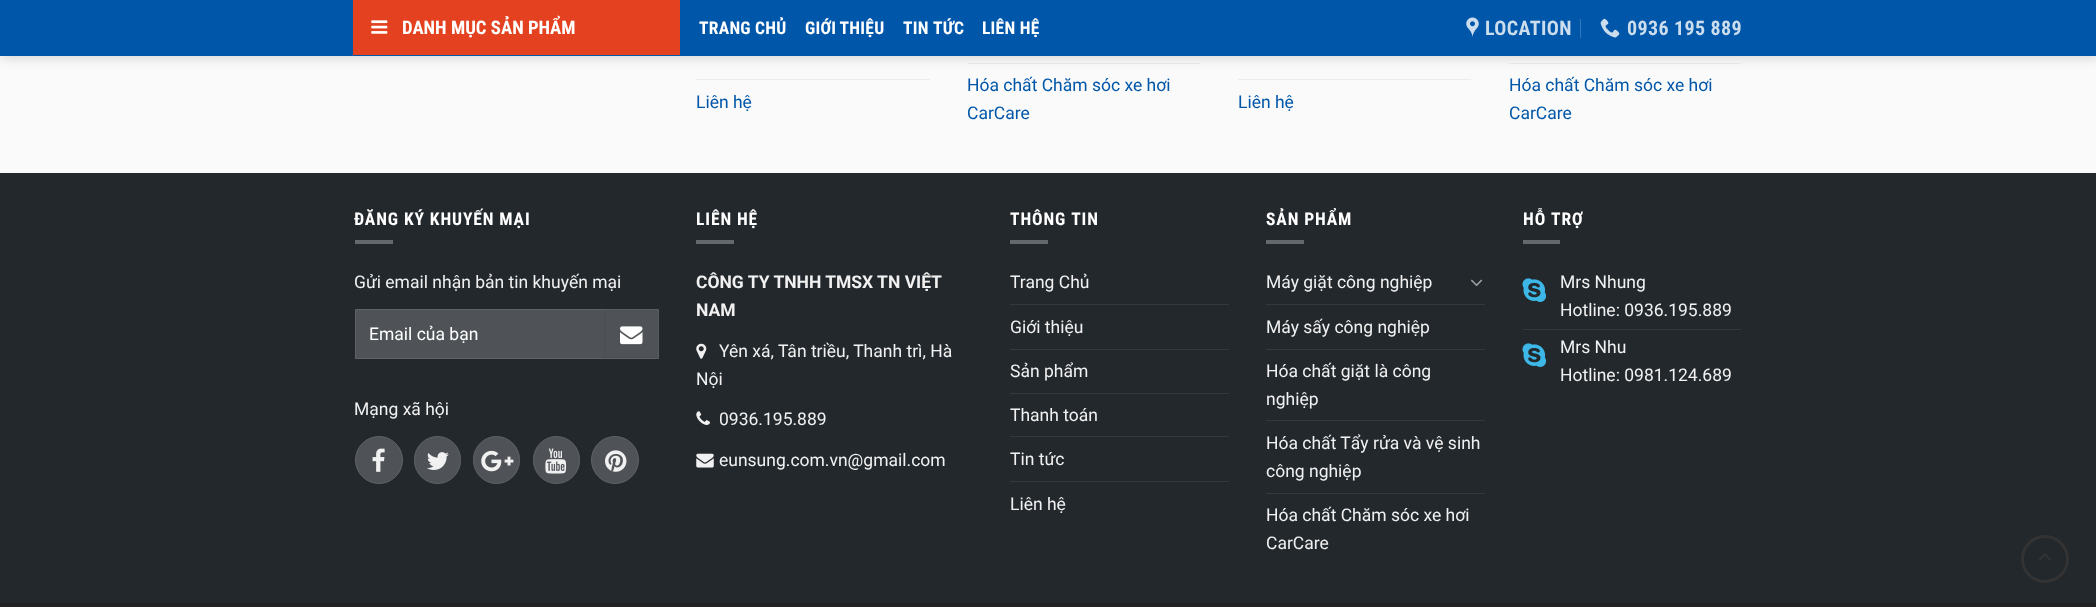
<!DOCTYPE html>
<meta charset="utf-8">
<style>body { margin: 0 } canvas { display: block }</style>
<canvas id="canvas" width="2096" height="607"></canvas>
<img id="img1" src="images/1.png" hidden>
<img id="img2" src="images/2.png" hidden>
<img id="img3" src="images/3.png" hidden>
<img id="img4" src="images/4.png" hidden>
<img id="img5" src="images/5.png" hidden>
<img id="img6" src="images/6.png" hidden>
<img id="img7" src="images/7.png" hidden>
<img id="img8" src="images/8.png" hidden>
<img id="img9" src="images/9.png" hidden>
<img id="img10" src="images/10.png" hidden>
<img id="img11" src="images/11.png" hidden>
<img id="img12" src="images/12.png" hidden>
<img id="img13" src="images/13.png" hidden>
<img id="img14" src="images/14.png" hidden>
<img id="img15" src="images/15.png" hidden>
<script>
window.onload = function () {
    const canvas = document.getElementById('canvas');
    const context = canvas.getContext('2d');
    context.miterLimit = 4;
    context.fontKerning = 'normal';

    context.fillStyle = 'rgb(250, 250, 250)';
    context.fillRect(0, 0, 2096, 607);
    context.fillStyle = 'rgb(236, 236, 236)';
    context.fillRect(968, 63, 232, 1);
    context.fillRect(1509, 63, 232, 1);
    context.fillStyle = 'rgba(0, 0, 0, 0.15)';
    context.filter = 'blur(6px)';
    context.beginPath();
    context.rect(1, 1, 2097, 57);
    context.fill();
    context.filter = 'none';
    context.fillStyle = 'rgb(0, 86, 168)';
    context.fillRect(0, 0, 2096, 56);
    context.fillStyle = 'rgb(227, 65, 31)';
    context.fillRect(353, 0, 327, 55);
    context.drawImage(document.getElementById('img1'), 371, 20, 17, 14);
    context.drawImage(document.getElementById('img2'), 1466, 17, 13, 20);
    context.fillStyle = 'rgb(51, 120, 185)';
    context.fillRect(1580, 19, 1, 19);
    context.drawImage(document.getElementById('img3'), 1600, 18, 20, 20);
    context.fillStyle = 'rgb(236, 236, 236)';
    context.fillRect(696, 79, 234, 1);
    context.fillRect(1238, 79, 233, 1);
    context.fillStyle = 'rgb(35, 40, 45)';
    context.fillRect(0, 173, 2096, 430);
    context.fillStyle = 'rgb(101, 105, 108)';
    context.fillRect(355, 240, 38, 4);
    context.fillStyle = 'rgb(79, 83, 87)';
    context.beginPath();
    context.rect(355.5, 309.5, 303, 49);
    context.fill();
    context.strokeStyle = 'rgb(95, 98, 102)';
    context.stroke();
    context.strokeStyle = 'rgba(0, 0, 0, 0.05)';
    context.strokeRect(604.5, 309.5, 54, 48);
    context.drawImage(document.getElementById('img4'), 620, 326, 23, 19);
    context.beginPath();
    context.arc(379, 460, 23.5, 0, 2 * Math.PI);
    context.fill();
    context.strokeStyle = 'rgb(95, 99, 102)';
    context.stroke();
    context.drawImage(document.getElementById('img5'), 372, 448, 13, 24);
    context.beginPath();
    context.roundRect(414.5, 436.5, 46, 47, 23);
    context.fill();
    context.stroke();
    context.drawImage(document.getElementById('img6'), 427, 452, 22, 18);
    context.beginPath();
    context.roundRect(473.5, 436.5, 46, 47, 23);
    context.fill();
    context.stroke();
    context.drawImage(document.getElementById('img7'), 481, 450, 33, 22);
    context.beginPath();
    context.roundRect(533.5, 436.5, 46, 47, 23);
    context.fill();
    context.stroke();
    context.drawImage(document.getElementById('img8'), 545, 448, 22, 26);
    context.beginPath();
    context.arc(615, 460, 23.5, 0, 2 * Math.PI);
    context.fill();
    context.stroke();
    context.drawImage(document.getElementById('img9'), 605, 450, 22, 22);
    context.fillStyle = 'rgb(101, 105, 108)';
    context.fillRect(696, 240, 38, 4);
    context.drawImage(document.getElementById('img10'), 696, 343, 11, 16);
    context.drawImage(document.getElementById('img11'), 696, 411, 14, 14);
    context.drawImage(document.getElementById('img12'), 696, 453, 18, 15);
    context.fillRect(1010, 240, 38, 4);
    context.fillStyle = 'rgb(53, 57, 62)';
    context.fillRect(1010, 304, 219, 1);
    context.fillRect(1010, 349, 219, 1);
    context.fillRect(1010, 393, 219, 1);
    context.fillRect(1010, 436, 219, 1);
    context.fillRect(1010, 481, 219, 1);
    context.fillStyle = 'rgb(101, 105, 108)';
    context.fillRect(1266, 240, 38, 4);
    context.drawImage(document.getElementById('img13'), 1471, 279, 12, 8);
    context.fillStyle = 'rgb(53, 57, 62)';
    context.fillRect(1266, 304, 219, 1);
    context.fillRect(1266, 349, 219, 1);
    context.fillRect(1266, 420, 219, 1);
    context.fillRect(1266, 493, 219, 1);
    context.fillStyle = 'rgb(101, 105, 108)';
    context.fillRect(1523, 240, 37, 4);
    context.fillStyle = 'rgb(53, 57, 62)';
    context.fillRect(1523, 329, 218, 1);
    context.drawImage(document.getElementById('img14'), 1522, 278, 25, 24);
    context.drawImage(document.getElementById('img14'), 1522, 343, 25, 24);
    context.beginPath();
    context.arc(2045, 559, 22.5, 0, 2 * Math.PI);
    context.strokeStyle = 'rgb(51, 51, 51)';
    context.lineWidth = 3;
    context.stroke();
    context.drawImage(document.getElementById('img15'), 2038, 553, 14, 8);
    context.fillStyle = 'rgb(34, 34, 34)';
    context.fillRect(0, 603, 2096, 4);
    context.font = 'bold 18.75px Roboto Condensed';
    context.fillStyle = 'rgb(255, 255, 255)';
    context.fillText('DANH MỤC SẢN PHẨM', 402, 34);
    context.letterSpacing = '0.25px';
    context.font = 'bold 17.5px Roboto Condensed';
    context.fillText('TRANG CHỦ', 699, 34);
    context.wordSpacing = '-1px';
    context.fillText('GIỚI THIỆU', 805, 34);
    context.wordSpacing = '0px';
    context.fillText('TIN TỨC', 903, 34);
    context.fillText('LIÊN HỆ', 982, 34);
    context.letterSpacing = '0.4px';
    context.font = 'bold 20px Roboto Condensed';
    context.fillStyle = 'rgb(204, 221, 238)';
    context.fillText('LOCATION', 1485, 35);
    context.fillText('0936 195 889', 1627, 35);
    context.letterSpacing = '0px';
    context.font = '17.5px Roboto';
    context.fillStyle = 'rgb(0, 86, 168)';
    context.fillText('Liên hệ', 696, 108);
    context.fillText('Hóa chất Chăm sóc xe hơi', 967, 91);
    context.fillText('CarCare', 967, 119);
    context.fillText('Liên hệ', 1238, 108);
    context.fillText('Hóa chất Chăm sóc xe hơi', 1509, 91);
    context.fillText('CarCare', 1509, 119);
    context.letterSpacing = '0.9px';
    context.font = 'bold 17.5px Roboto Condensed';
    context.fillStyle = 'rgb(255, 255, 255)';
    context.fillText('ĐĂNG KÝ KHUYẾN MẠI', 354, 225);
    context.letterSpacing = '0px';
    context.font = '17.5px Roboto';
    context.fillStyle = 'rgb(241, 241, 241)';
    context.fillText('Gửi email nhận bản tin khuyến mại', 354, 288);
    context.fillStyle = 'rgb(255, 255, 255)';
    context.fillText('Email của bạn', 369, 340);
    context.fillStyle = 'rgb(241, 241, 241)';
    context.fillText('Mạng xã hội', 354, 415);
    context.letterSpacing = '0.9px';
    context.font = 'bold 17.5px Roboto Condensed';
    context.fillStyle = 'rgb(255, 255, 255)';
    context.fillText('LIÊN HỆ', 696, 225);
    context.letterSpacing = '0px';
    context.font = 'bold 17.5px Roboto';
    context.fillStyle = 'rgb(241, 241, 241)';
    context.fillText('CÔNG TY TNHH TMSX TN VIỆT', 696, 288);
    context.fillText('NAM', 696, 316);
    context.font = '17.5px Roboto';
    context.fillText('Yên xá, Tân triều, Thanh trì, Hà', 719, 357);
    context.fillText('Nội', 696, 385);
    context.fillText('0936.195.889', 719, 425);
    context.fillText('eunsung.com.vn@gmail.com', 719, 466);
    context.letterSpacing = '0.9px';
    context.font = 'bold 17.5px Roboto Condensed';
    context.fillStyle = 'rgb(255, 255, 255)';
    context.fillText('THÔNG TIN', 1010, 225);
    context.letterSpacing = '0px';
    context.font = '17.5px Roboto';
    context.fillStyle = 'rgb(241, 241, 241)';
    context.fillText('Trang Chủ', 1010, 288);
    context.fillText('Giới thiệu', 1010, 333);
    context.fillText('Sản phẩm', 1010, 377);
    context.fillText('Thanh toán', 1010, 421);
    context.fillText('Tin tức', 1010, 465);
    context.fillText('Liên hệ', 1010, 510);
    context.letterSpacing = '0.9px';
    context.font = 'bold 17.5px Roboto Condensed';
    context.fillStyle = 'rgb(255, 255, 255)';
    context.fillText('SẢN PHẨM', 1266, 225);
    context.letterSpacing = '0px';
    context.font = '17.5px Roboto';
    context.fillStyle = 'rgb(241, 241, 241)';
    context.fillText('Máy giặt công nghiệp', 1266, 288);
    context.fillText('Máy sấy công nghiệp', 1266, 333);
    context.fillText('Hóa chất giặt là công', 1266, 377);
    context.fillText('nghiệp', 1266, 405);
    context.fillText('Hóa chất Tẩy rửa và vệ sinh', 1266, 449);
    context.fillText('công nghiệp', 1266, 477);
    context.fillText('Hóa chất Chăm sóc xe hơi', 1266, 521);
    context.fillText('CarCare', 1266, 549);
    context.letterSpacing = '0.9px';
    context.font = 'bold 17.5px Roboto Condensed';
    context.fillStyle = 'rgb(255, 255, 255)';
    context.fillText('HỖ TRỢ', 1523, 225);
    context.letterSpacing = '0px';
    context.font = '17.5px Roboto';
    context.fillStyle = 'rgb(241, 241, 241)';
    context.fillText('Mrs Nhung', 1560, 288);
    context.fillText('Hotline: 0936.195.889', 1560, 316);
    context.fillText('Mrs Nhu', 1560, 353);
    context.fillText('Hotline: 0981.124.689', 1560, 381);
};
</script>
